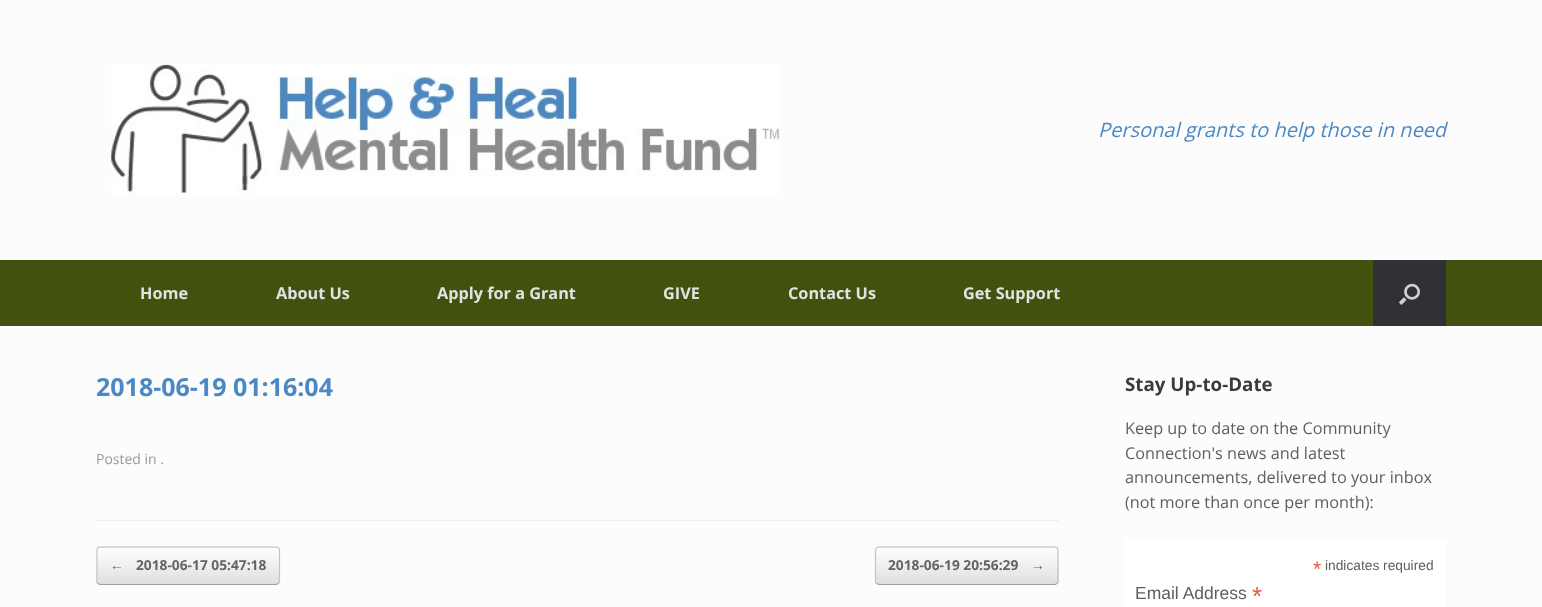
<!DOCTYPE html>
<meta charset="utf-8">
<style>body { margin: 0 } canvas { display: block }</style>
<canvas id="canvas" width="1542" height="607"></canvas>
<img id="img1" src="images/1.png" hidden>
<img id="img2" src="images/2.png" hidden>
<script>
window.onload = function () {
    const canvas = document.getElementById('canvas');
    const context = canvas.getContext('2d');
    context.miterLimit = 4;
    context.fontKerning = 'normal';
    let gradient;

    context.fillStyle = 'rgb(252, 252, 252)';
    context.fillRect(0, 0, 1542, 607);
    context.drawImage(document.getElementById('img1'), 111, 64, 668, 131);
    context.fillStyle = 'rgb(66, 81, 14)';
    context.fillRect(0, 260, 1542, 66);
    context.fillStyle = 'rgb(48, 49, 52)';
    context.fillRect(1373, 260, 73, 66);
    context.drawImage(document.getElementById('img2'), 1398, 283, 22, 22);
    context.fillStyle = 'rgb(238, 238, 238)';
    context.fillRect(96, 520, 963, 1);
    context.save();
    context.beginPath();
    context.roundRect(96, 546, 184, 39, 4);
    context.clip();
    gradient = context.createLinearGradient(98, 548, 98, 511);
    gradient.addColorStop(0, 'rgb(223, 223, 223)');
    gradient.addColorStop(1, 'rgb(255, 255, 255)');
    context.fillStyle = gradient;
    context.fillRect(96, 546, 184, 2);
    gradient = context.createLinearGradient(98, 584, 98, 548);
    gradient.addColorStop(0, 'rgb(223, 223, 223)');
    gradient.addColorStop(1, 'rgb(255, 255, 255)');
    context.fillStyle = gradient;
    context.fillRect(96, 548, 184, 36);
    gradient = context.createLinearGradient(98, 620, 98, 584);
    gradient.addColorStop(0, 'rgb(223, 223, 223)');
    gradient.addColorStop(1, 'rgb(255, 255, 255)');
    context.fillStyle = gradient;
    context.fillRect(96, 584, 184, 1);
    context.restore();
    context.beginPath();
    context.moveTo(98, 548);
    context.lineTo(100, 547);
    context.lineTo(276, 547);
    context.lineTo(278.5, 548);
    context.strokeStyle = 'rgb(210, 210, 210)';
    context.lineWidth = 1.2;
    context.stroke();
    context.beginPath();
    context.moveTo(278.5, 548);
    context.bezierCurveTo(279, 548.5, 279.5, 549, 279.5, 550);
    context.lineTo(279.5, 581);
    context.bezierCurveTo(279.5, 582, 279, 583, 278.5, 583.5);
    context.strokeStyle = 'rgb(195, 195, 195)';
    context.stroke();
    context.save();
    context.beginPath();
    context.rect(96, 546, 963, 39);
    context.clip();
    context.beginPath();
    context.moveTo(278.5, 583.5);
    context.lineTo(276, 584.5);
    context.lineTo(100, 584.5);
    context.lineTo(98, 583.5);
    context.strokeStyle = 'rgb(159, 159, 159)';
    context.stroke();
    context.restore();
    context.beginPath();
    context.moveTo(98, 583.5);
    context.bezierCurveTo(97, 583, 97, 582, 97, 581);
    context.lineTo(97, 550);
    context.bezierCurveTo(97, 549, 97, 548.5, 98, 548);
    context.stroke();
    context.save();
    context.beginPath();
    context.roundRect(875, 546, 184, 39, 4);
    context.clip();
    gradient = context.createLinearGradient(876, 548, 876, 511);
    gradient.addColorStop(0, 'rgb(223, 223, 223)');
    gradient.addColorStop(1, 'rgb(255, 255, 255)');
    context.fillStyle = gradient;
    context.fillRect(875, 546, 184, 2);
    gradient = context.createLinearGradient(876, 584, 876, 548);
    gradient.addColorStop(0, 'rgb(223, 223, 223)');
    gradient.addColorStop(1, 'rgb(255, 255, 255)');
    context.fillStyle = gradient;
    context.fillRect(875, 548, 184, 36);
    gradient = context.createLinearGradient(876, 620, 876, 584);
    gradient.addColorStop(0, 'rgb(223, 223, 223)');
    gradient.addColorStop(1, 'rgb(255, 255, 255)');
    context.fillStyle = gradient;
    context.fillRect(875, 584, 184, 1);
    context.restore();
    context.beginPath();
    context.moveTo(876.5, 548);
    context.lineTo(879, 547);
    context.lineTo(1055, 547);
    context.lineTo(1057, 548);
    context.strokeStyle = 'rgb(210, 210, 210)';
    context.stroke();
    context.beginPath();
    context.moveTo(1057, 548);
    context.bezierCurveTo(1058, 548.5, 1058, 549, 1058, 550);
    context.lineTo(1058, 581);
    context.bezierCurveTo(1058, 582, 1058, 583, 1057, 583.5);
    context.strokeStyle = 'rgb(195, 195, 195)';
    context.stroke();
    context.save();
    context.beginPath();
    context.rect(96, 546, 963, 39);
    context.clip();
    context.beginPath();
    context.moveTo(1057, 583.5);
    context.lineTo(1055, 584.5);
    context.lineTo(879, 584.5);
    context.lineTo(876.5, 583.5);
    context.strokeStyle = 'rgb(159, 159, 159)';
    context.stroke();
    context.restore();
    context.beginPath();
    context.moveTo(876.5, 583.5);
    context.bezierCurveTo(876, 583, 875.5, 582, 875.5, 581);
    context.lineTo(875.5, 550);
    context.bezierCurveTo(875.5, 549, 876, 548.5, 876.5, 548);
    context.stroke();
    context.fillStyle = 'rgb(255, 255, 255)';
    context.fillRect(1125, 539, 321, 68);
    context.font = 'italic 20px Open Sans';
    context.fillStyle = 'rgb(76, 136, 196)';
    context.fillText('Personal grants to help those in need', 1098, 137);
    context.font = 'bold 16.25px Open Sans';
    context.fillStyle = 'rgb(226, 226, 226)';
    context.fillText('Home', 140, 299);
    context.fillText('About Us', 276, 299);
    context.fillText('Apply for a Grant', 437, 299);
    context.fillText('GIVE', 663, 299);
    context.fillText('Contact Us', 788, 299);
    context.fillText('Get Support', 963, 299);
    context.font = 'bold 25px Open Sans';
    context.fillStyle = 'rgb(76, 136, 196)';
    context.fillText('2018-06-19 01:16:04', 96, 396);
    context.font = '14px Open Sans';
    context.fillStyle = 'rgb(153, 153, 153)';
    context.fillText('Posted in .', 96, 464);
    context.font = 'bold 13.75px Liberation Serif';
    context.fillStyle = 'rgb(100, 100, 100)';
    context.fillText('←', 110, 570);
    context.font = 'bold 13.75px Open Sans';
    context.fillText('2018-06-17 05:47:18', 136, 570);
    context.fillText('2018-06-19 20:56:29', 888, 570);
    context.font = 'bold 13.75px Liberation Serif';
    context.fillText('→', 1031, 570);
    context.font = 'bold 18.75px Open Sans';
    context.fillStyle = 'rgb(59, 59, 59)';
    context.fillText('Stay Up-to-Date', 1125, 391);
    context.font = '16.25px Open Sans';
    context.fillStyle = 'rgb(94, 94, 94)';
    context.fillText('Keep up to date on the Community', 1125, 434);
    context.fillText('Connection\'s news and latest', 1125, 459);
    context.fillText('announcements, delivered to your inbox', 1125, 483);
    context.fillText('(not more than once per month):', 1125, 508);
    context.font = '21px Liberation Sans';
    context.fillStyle = 'rgb(232, 92, 65)';
    context.fillText('*', 1313, 576);
    context.font = '13.75px Liberation Sans';
    context.fillStyle = 'rgb(94, 94, 94)';
    context.fillText('indicates required', 1325, 570);
    context.font = '17.5px Liberation Sans';
    context.fillText('Email Address', 1135, 599);
    context.font = '26px Liberation Sans';
    context.fillStyle = 'rgb(232, 92, 65)';
    context.fillText('*', 1252, 605);
};
</script>
